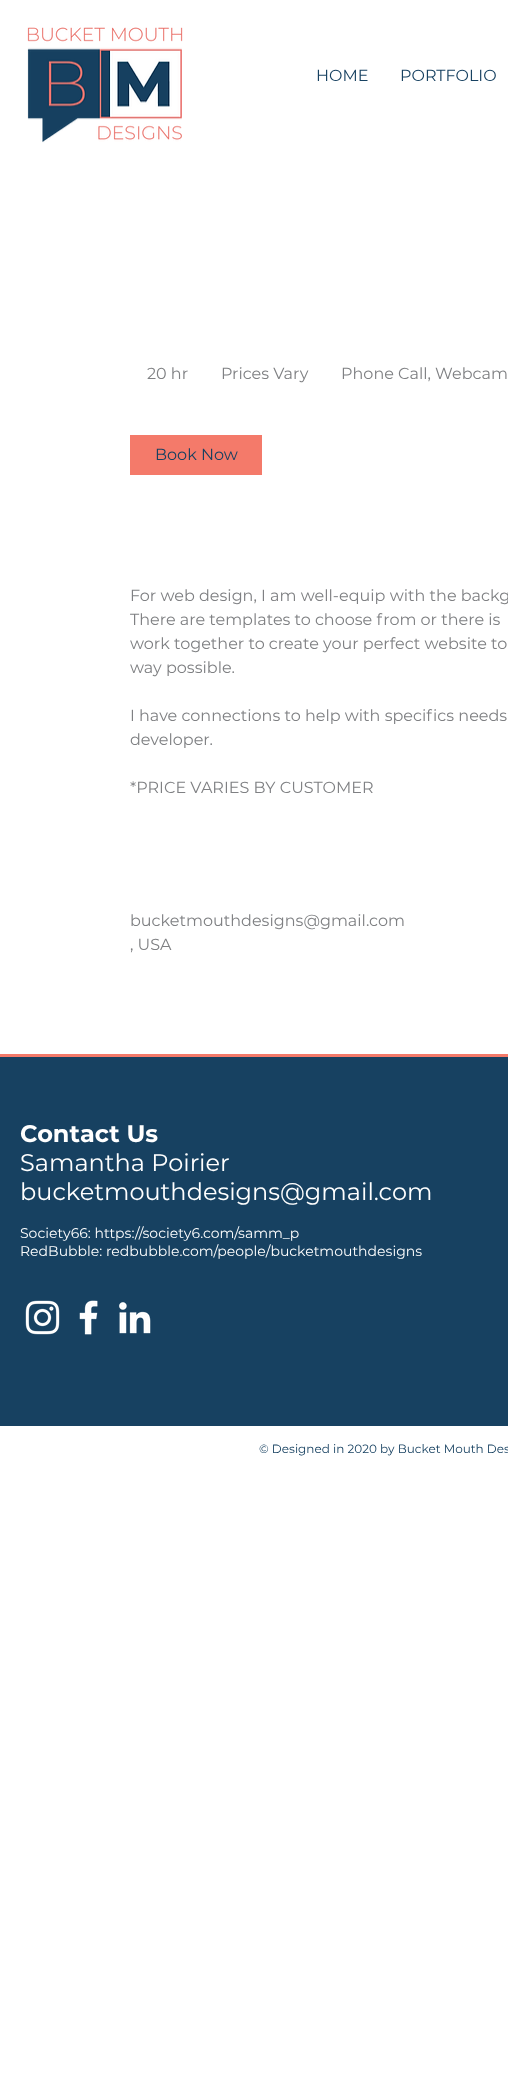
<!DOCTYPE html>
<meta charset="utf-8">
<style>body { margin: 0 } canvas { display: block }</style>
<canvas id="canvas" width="508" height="2076"></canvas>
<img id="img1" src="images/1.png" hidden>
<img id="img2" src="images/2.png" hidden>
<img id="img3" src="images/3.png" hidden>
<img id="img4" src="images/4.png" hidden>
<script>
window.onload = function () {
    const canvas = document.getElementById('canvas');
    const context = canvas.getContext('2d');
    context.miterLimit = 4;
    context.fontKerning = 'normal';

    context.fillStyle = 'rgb(255, 255, 255)';
    context.fillRect(0, 0, 508, 2076);
    context.drawImage(document.getElementById('img1'), 27, 27, 156, 116);
    context.fillStyle = 'rgb(244, 122, 106)';
    context.fillRect(130, 435, 132, 40);
    context.fillStyle = 'rgb(23, 65, 97)';
    context.fillRect(0, 1057, 508, 369);
    context.fillStyle = 'rgb(244, 122, 106)';
    context.fillRect(0, 1054, 508, 3);
    context.drawImage(document.getElementById('img2'), 25, 1300, 35, 35);
    context.drawImage(document.getElementById('img3'), 79, 1300, 19, 35);
    context.drawImage(document.getElementById('img4'), 119, 1302, 32, 32);
    context.font = '16px Montserrat';
    context.fillStyle = 'rgb(23, 65, 97)';
    context.fillText('HOME', 316, 81);
    context.fillText('PORTFOLIO', 400, 81);
    context.fillStyle = 'rgb(127, 128, 131)';
    context.fillText('20 hr', 147, 379);
    context.fillText('Prices Vary', 221, 379);
    context.fillText('Phone Call, Webcam', 341, 379);
    context.fillStyle = 'rgb(23, 65, 97)';
    context.fillText('Book Now', 155, 460);
    context.fillStyle = 'rgb(127, 128, 131)';
    context.fillText('For web design, I am well-equip with the backg', 130, 601);
    context.fillText('There are templates to choose from or there is', 130, 625);
    context.fillText('work together to create your perfect website to', 130, 649);
    context.fillText('way possible.', 130, 673);
    context.fillText('I have connections to help with specifics needs', 130, 721);
    context.fillText('developer.', 130, 745);
    context.fillText('*PRICE VARIES BY CUSTOMER', 130, 793);
    context.fillText('bucketmouthdesigns@gmail.com', 130, 926);
    context.fillText(', USA', 130, 950);
    context.font = 'bold 24px Montserrat';
    context.fillStyle = 'rgb(255, 255, 255)';
    context.fillText('Contact Us', 20, 1142);
    context.font = '24px Montserrat';
    context.fillText('Samantha Poirier', 20, 1171);
    context.fillText('bucketmouthdesigns@gmail.com', 20, 1200);
    context.font = '14px Montserrat';
    context.fillText('Society66: https://society6.com/samm_p', 20, 1238);
    context.fillText('RedBubble: redbubble.com/people/bucketmouthdesigns', 20, 1256);
    context.font = '12px Montserrat';
    context.fillStyle = 'rgb(23, 65, 97)';
    context.fillText('© Designed in 2020 by Bucket Mouth Des', 259, 1453);
};
</script>
